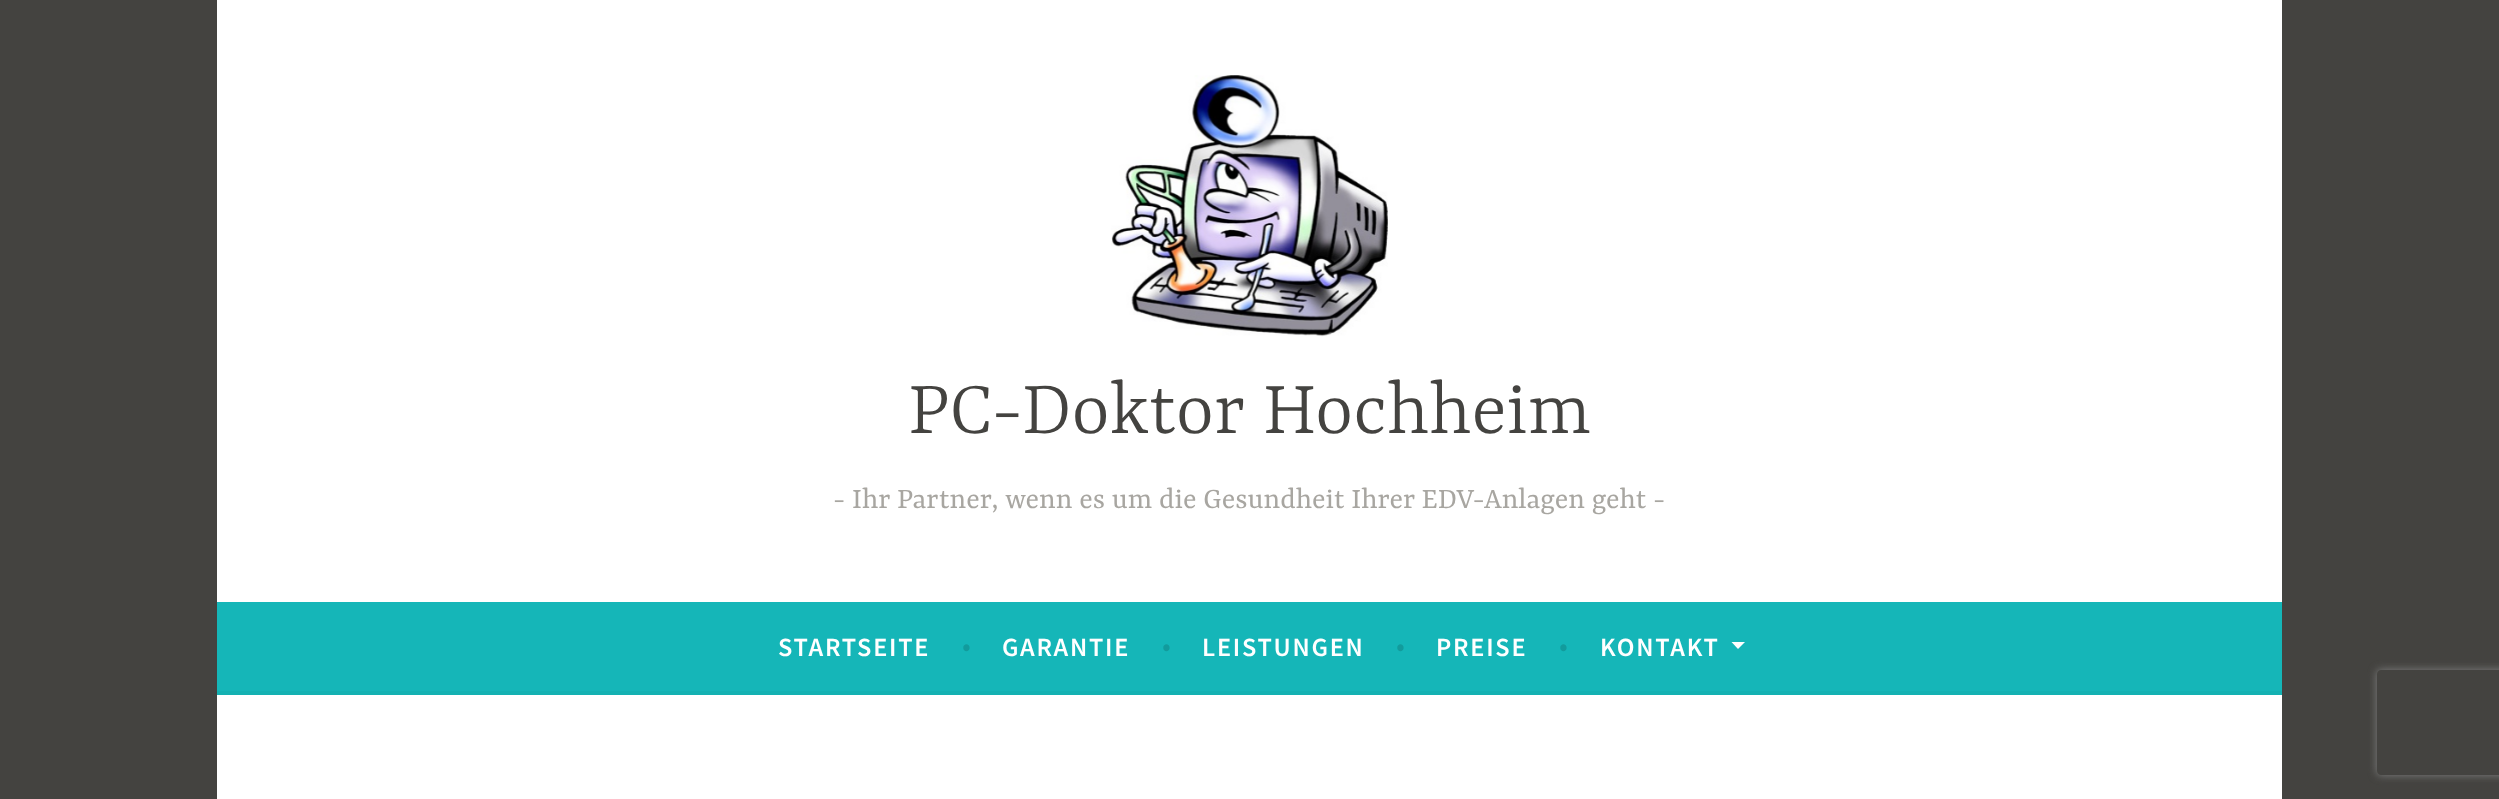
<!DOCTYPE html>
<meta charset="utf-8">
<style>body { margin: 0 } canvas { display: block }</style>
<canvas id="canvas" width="2499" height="799"></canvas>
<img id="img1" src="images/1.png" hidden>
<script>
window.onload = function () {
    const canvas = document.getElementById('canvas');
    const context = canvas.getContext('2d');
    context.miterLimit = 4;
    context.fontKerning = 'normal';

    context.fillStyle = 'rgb(68, 67, 64)';
    context.fillRect(0, 0, 2499, 799);
    context.fillStyle = 'rgb(255, 255, 255)';
    context.fillRect(217, 0, 2065, 602);
    context.drawImage(document.getElementById('img1'), 1111, 75, 277, 262);
    context.fillStyle = 'rgb(21, 182, 184)';
    context.fillRect(217, 602, 2065, 89);
    context.fillStyle = 'rgb(20, 177, 178)';
    context.fillRect(217, 691, 2065, 4);
    context.fillStyle = 'rgb(255, 255, 255)';
    context.beginPath();
    context.moveTo(1731.5, 642);
    context.lineTo(1745, 642);
    context.lineTo(1738, 649);
    context.closePath();
    context.fill();
    context.fillRect(217, 695, 2065, 104);
    context.save();
    context.beginPath();
    context.moveTo(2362, 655);
    context.lineTo(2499, 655);
    context.lineTo(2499, 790);
    context.lineTo(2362, 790);
    context.closePath();
    context.moveTo(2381, 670);
    context.lineTo(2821, 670);
    context.bezierCurveTo(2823, 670, 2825, 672, 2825, 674);
    context.lineTo(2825, 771);
    context.bezierCurveTo(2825, 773, 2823, 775, 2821, 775);
    context.lineTo(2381, 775);
    context.bezierCurveTo(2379, 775, 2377, 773, 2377, 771);
    context.lineTo(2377, 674);
    context.bezierCurveTo(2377, 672, 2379, 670, 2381, 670);
    context.closePath();
    context.clip('evenodd');
    context.fillStyle = 'rgb(128, 128, 128)';
    context.filter = 'blur(4.5px)';
    context.beginPath();
    context.roundRect(2377, 670, 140, 105, 4);
    context.fill();
    context.filter = 'none';
    context.restore();
    context.font = '300 82.25px Yrsa';
    context.fillStyle = 'rgb(68, 67, 64)';
    context.fillText('PC-Doktor Hochheim', 908, 433);
    context.font = '31.5px Yrsa';
    context.fillStyle = 'rgb(168, 166, 161)';
    context.fillText('- Ihr Partner, wenn es um die Gesundheit Ihrer EDV-Anlagen geht -', 833, 508);
    context.letterSpacing = '1.75px';
    context.font = '600 26.25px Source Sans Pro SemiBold';
    context.fillStyle = 'rgb(255, 255, 255)';
    context.fillText('STARTSEITE', 778, 656);
    context.letterSpacing = '0px';
    context.font = '300 31.5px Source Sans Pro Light';
    context.fillStyle = 'rgb(18, 155, 156)';
    context.fillText('•', 962, 656);
    context.letterSpacing = '1.75px';
    context.font = '600 26.25px Source Sans Pro SemiBold';
    context.fillStyle = 'rgb(255, 255, 255)';
    context.fillText('GARANTIE', 1002, 656);
    context.letterSpacing = '0px';
    context.font = '300 31.5px Source Sans Pro Light';
    context.fillStyle = 'rgb(18, 155, 156)';
    context.fillText('•', 1162, 656);
    context.letterSpacing = '1.75px';
    context.font = '600 26.25px Source Sans Pro SemiBold';
    context.fillStyle = 'rgb(255, 255, 255)';
    context.fillText('LEISTUNGEN', 1202, 656);
    context.letterSpacing = '0px';
    context.font = '300 31.5px Source Sans Pro Light';
    context.fillStyle = 'rgb(18, 155, 156)';
    context.fillText('•', 1396, 656);
    context.letterSpacing = '1.75px';
    context.font = '600 26.25px Source Sans Pro SemiBold';
    context.fillStyle = 'rgb(255, 255, 255)';
    context.fillText('PREISE', 1436, 656);
    context.letterSpacing = '0px';
    context.font = '300 31.5px Source Sans Pro Light';
    context.fillStyle = 'rgb(18, 155, 156)';
    context.fillText('•', 1559, 656);
    context.letterSpacing = '1.75px';
    context.font = '600 26.25px Source Sans Pro SemiBold';
    context.fillStyle = 'rgb(255, 255, 255)';
    context.fillText('KONTAKT', 1600, 656);
};
</script>
